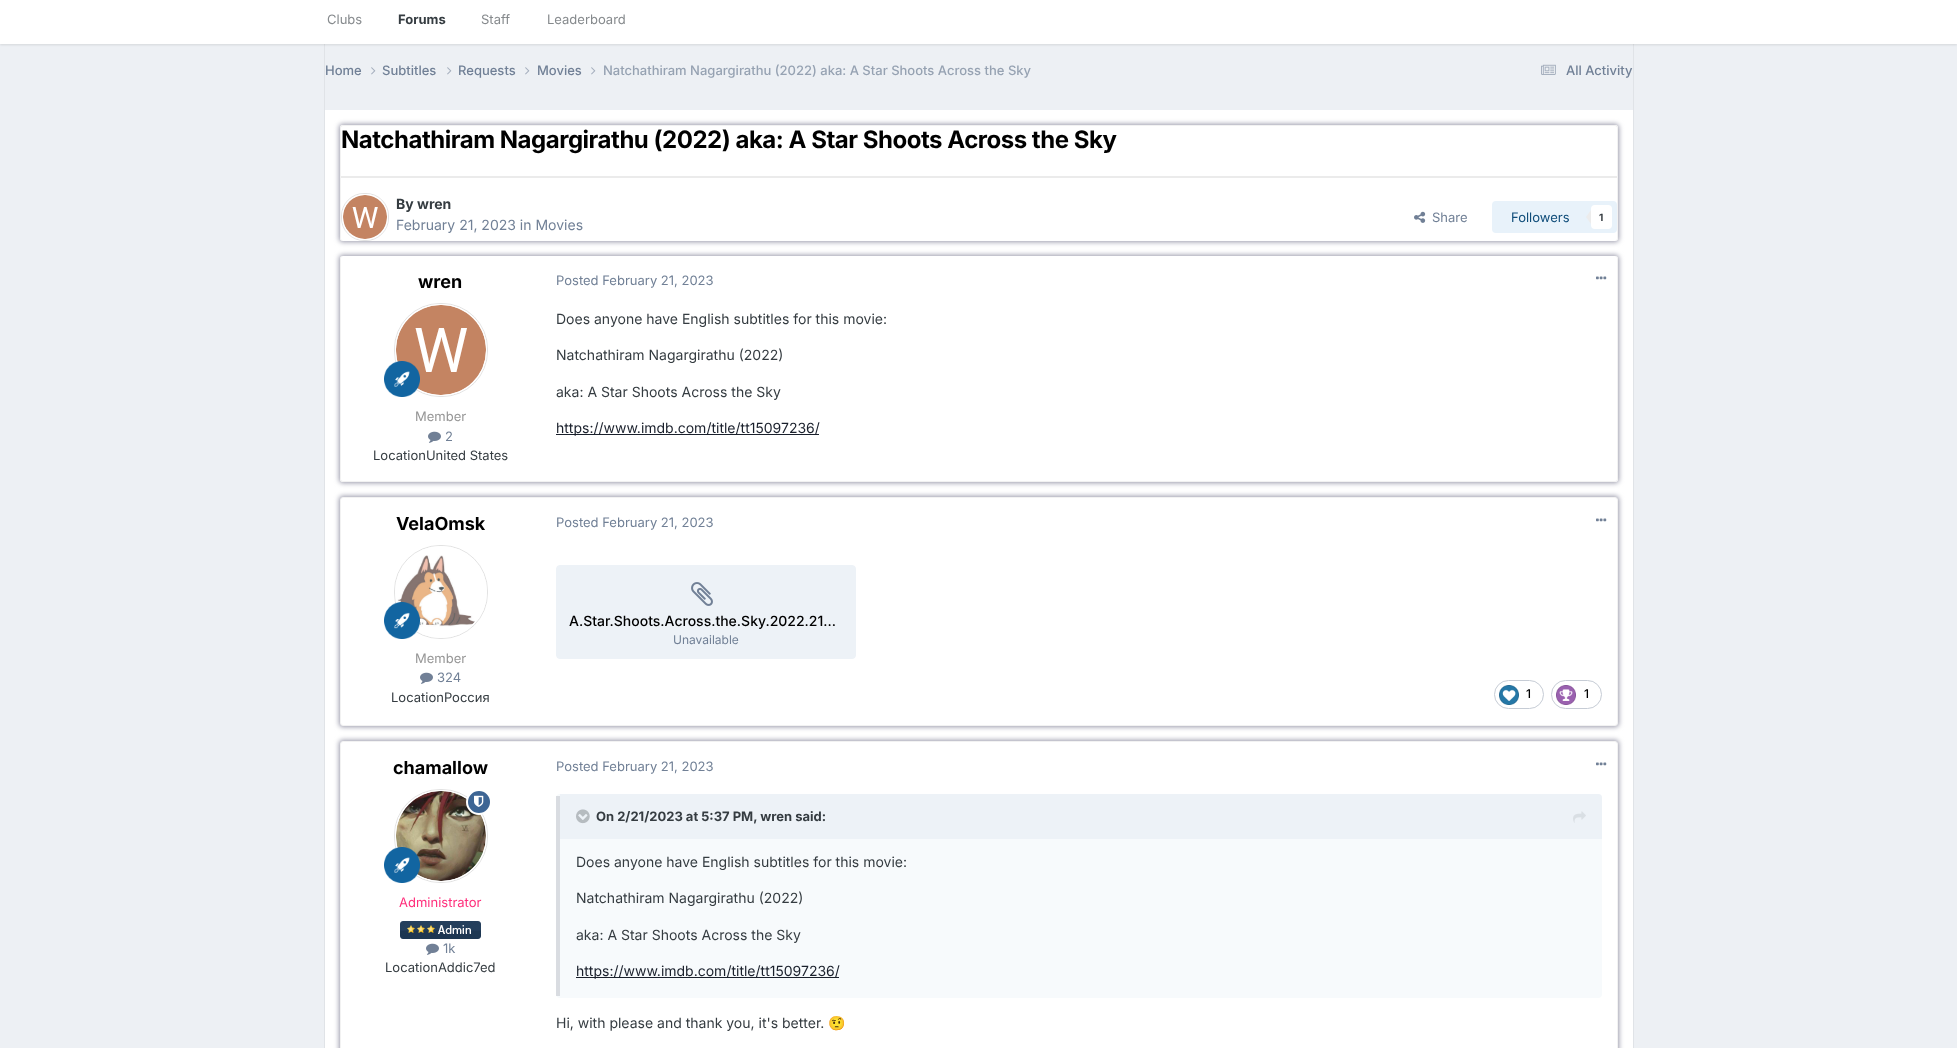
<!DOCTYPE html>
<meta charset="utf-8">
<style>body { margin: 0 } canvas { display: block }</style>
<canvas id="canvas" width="1957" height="1048"></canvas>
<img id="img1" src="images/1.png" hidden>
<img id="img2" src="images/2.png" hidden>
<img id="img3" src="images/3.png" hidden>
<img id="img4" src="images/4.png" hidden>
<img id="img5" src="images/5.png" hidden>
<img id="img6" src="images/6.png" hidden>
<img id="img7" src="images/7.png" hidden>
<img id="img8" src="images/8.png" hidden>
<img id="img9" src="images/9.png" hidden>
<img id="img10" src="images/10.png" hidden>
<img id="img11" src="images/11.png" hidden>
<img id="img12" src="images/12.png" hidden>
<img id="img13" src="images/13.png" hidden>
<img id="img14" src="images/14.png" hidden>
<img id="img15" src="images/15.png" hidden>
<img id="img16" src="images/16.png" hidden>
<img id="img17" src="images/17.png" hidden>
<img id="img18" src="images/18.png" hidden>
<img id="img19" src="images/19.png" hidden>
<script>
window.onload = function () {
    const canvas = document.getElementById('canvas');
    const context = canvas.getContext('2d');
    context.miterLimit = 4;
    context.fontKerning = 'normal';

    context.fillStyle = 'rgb(237, 240, 244)';
    context.fillRect(0, 0, 1957, 1048);
    context.fillStyle = 'rgba(0, 0, 0, 0.1)';
    context.filter = 'blur(1px)';
    context.beginPath();
    context.rect(0, -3, 1957, 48);
    context.fill();
    context.filter = 'none';
    context.fillStyle = 'rgb(255, 255, 255)';
    context.fillRect(0, 0, 1957, 44);
    context.fillStyle = 'rgba(0, 0, 0, 0.05)';
    context.beginPath();
    context.moveTo(1634, 44);
    context.lineTo(1634, 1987);
    context.lineTo(1633, 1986);
    context.lineTo(1633, 44);
    context.closePath();
    context.fill();
    context.beginPath();
    context.moveTo(324, 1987);
    context.lineTo(324, 44);
    context.lineTo(325, 44);
    context.lineTo(325, 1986);
    context.closePath();
    context.fill();
    context.drawImage(document.getElementById('img1'), 371, 67, 5, 8);
    context.drawImage(document.getElementById('img1'), 447, 67, 5, 8);
    context.drawImage(document.getElementById('img1'), 525, 67, 5, 8);
    context.drawImage(document.getElementById('img1'), 591, 67, 5, 8);
    context.drawImage(document.getElementById('img2'), 1541, 64, 15, 11);
    context.fillStyle = 'rgb(255, 255, 255)';
    context.fillRect(325, 110, 1308, 938);
    context.fillStyle = 'rgb(153, 153, 170)';
    context.filter = 'blur(2.5px)';
    context.beginPath();
    context.roundRect(339, 124, 1280, 118, 4);
    context.fill();
    context.filter = 'none';
    context.fillStyle = 'rgb(255, 255, 255)';
    context.beginPath();
    context.roundRect(340, 125, 1278, 116, 3);
    context.fill();
    context.fillStyle = 'rgb(242, 242, 242)';
    context.beginPath();
    context.moveTo(343, 125);
    context.lineTo(1615, 125);
    context.bezierCurveTo(1617, 125, 1618, 126, 1618, 128);
    context.lineTo(1618, 238);
    context.bezierCurveTo(1618, 240, 1617, 241, 1615, 241);
    context.lineTo(343, 241);
    context.bezierCurveTo(341, 241, 340, 240, 340, 238);
    context.lineTo(340, 128);
    context.bezierCurveTo(340, 126, 341, 125, 343, 125);
    context.closePath();
    context.moveTo(343, 126);
    context.lineTo(1615, 126);
    context.bezierCurveTo(1616, 126, 1617, 127, 1617, 128);
    context.lineTo(1617, 238);
    context.bezierCurveTo(1617, 240, 1616, 241, 1615, 241);
    context.lineTo(343, 241);
    context.bezierCurveTo(342, 241, 341, 240, 341, 238);
    context.lineTo(341, 128);
    context.bezierCurveTo(341, 127, 342, 126, 343, 126);
    context.closePath();
    context.fill('evenodd');
    context.fillStyle = 'rgb(235, 235, 235)';
    context.fillRect(341, 176, 1276, 2);
    context.drawImage(document.getElementById('img3'), 343, 195, 44, 44);
    context.beginPath();
    context.roundRect(341.5, 193.5, 47, 47, 22.5);
    context.strokeStyle = 'rgb(226, 226, 226)';
    context.stroke();
    context.beginPath();
    context.roundRect(342.5, 194.5, 45, 45, 21.5);
    context.strokeStyle = 'rgb(255, 255, 255)';
    context.stroke();
    context.drawImage(document.getElementById('img4'), 1414, 211, 12, 12);
    context.fillStyle = 'rgb(232, 242, 250)';
    context.beginPath();
    context.roundRect(1492, 201, 125, 32, 4);
    context.fill();
    context.fillStyle = 'rgb(236, 236, 236)';
    context.beginPath();
    context.moveTo(1591, 210);
    context.lineTo(1591, 224);
    context.lineTo(1586, 217);
    context.closePath();
    context.fill();
    context.fillStyle = 'rgb(255, 255, 255)';
    context.beginPath();
    context.roundRect(1591, 205, 21, 24, 4);
    context.fill();
    context.fillStyle = 'rgb(153, 153, 170)';
    context.filter = 'blur(2.5px)';
    context.beginPath();
    context.roundRect(339, 255, 1280, 228, 4);
    context.fill();
    context.filter = 'none';
    context.fillStyle = 'rgb(255, 255, 255)';
    context.beginPath();
    context.roundRect(340, 256, 1278, 226, 3);
    context.fill();
    context.fillStyle = 'rgb(242, 242, 242)';
    context.beginPath();
    context.moveTo(343, 256);
    context.lineTo(1615, 256);
    context.bezierCurveTo(1617, 256, 1618, 257, 1618, 259);
    context.lineTo(1618, 479);
    context.bezierCurveTo(1618, 481, 1617, 482, 1615, 482);
    context.lineTo(343, 482);
    context.bezierCurveTo(341, 482, 340, 481, 340, 479);
    context.lineTo(340, 259);
    context.bezierCurveTo(340, 257, 341, 256, 343, 256);
    context.closePath();
    context.moveTo(343, 256);
    context.lineTo(1615, 256);
    context.bezierCurveTo(1616, 256, 1617, 257, 1617, 259);
    context.lineTo(1617, 479);
    context.bezierCurveTo(1617, 480, 1616, 481, 1615, 481);
    context.lineTo(343, 481);
    context.bezierCurveTo(342, 481, 341, 480, 341, 479);
    context.lineTo(341, 259);
    context.bezierCurveTo(341, 257, 342, 256, 343, 256);
    context.closePath();
    context.fill('evenodd');
    context.drawImage(document.getElementById('img5'), 396, 305, 90, 90);
    context.beginPath();
    context.roundRect(394.5, 303.5, 93, 93, 45.5);
    context.strokeStyle = 'rgb(226, 226, 226)';
    context.stroke();
    context.beginPath();
    context.roundRect(395.5, 304.5, 91, 91, 44.5);
    context.strokeStyle = 'rgb(255, 255, 255)';
    context.stroke();
    context.drawImage(document.getElementById('img6'), 384, 361, 36, 36);
    context.drawImage(document.getElementById('img7'), 428, 431, 13, 12);
    context.drawImage(document.getElementById('img8'), 1596, 276, 11, 4);
    context.fillStyle = 'rgb(26, 32, 44)';
    context.fillRect(556, 434, 263, 1);
    context.fillStyle = 'rgb(153, 153, 170)';
    context.filter = 'blur(2.5px)';
    context.beginPath();
    context.roundRect(339, 496, 1280, 231, 4);
    context.fill();
    context.filter = 'none';
    context.fillStyle = 'rgb(255, 255, 255)';
    context.beginPath();
    context.roundRect(340.5, 497.5, 1277, 228, 2.5);
    context.fill();
    context.strokeStyle = 'rgb(242, 242, 242)';
    context.stroke();
    context.drawImage(document.getElementById('img9'), 397, 555, 78, 72);
    context.beginPath();
    context.roundRect(394.5, 545.5, 93, 93, 45.5);
    context.strokeStyle = 'rgb(226, 226, 226)';
    context.stroke();
    context.beginPath();
    context.roundRect(395.5, 546.5, 91, 91, 44.5);
    context.strokeStyle = 'rgb(255, 255, 255)';
    context.stroke();
    context.drawImage(document.getElementById('img10'), 384, 602, 36, 37);
    context.drawImage(document.getElementById('img7'), 420, 672, 13, 12);
    context.drawImage(document.getElementById('img8'), 1596, 518, 11, 4);
    context.fillStyle = 'rgb(237, 242, 247)';
    context.beginPath();
    context.roundRect(556.5, 565.5, 299, 93, 3.5);
    context.fill();
    context.strokeStyle = 'rgb(237, 242, 247)';
    context.stroke();
    context.drawImage(document.getElementById('img11'), 691, 582, 22, 24);
    context.beginPath();
    context.roundRect(1494.5, 680.5, 49, 28, 14);
    context.strokeStyle = 'rgb(198, 204, 213)';
    context.stroke();
    context.drawImage(document.getElementById('img12'), 1499, 685, 20, 20);
    context.beginPath();
    context.roundRect(1551.5, 680.5, 50, 28, 14);
    context.stroke();
    context.drawImage(document.getElementById('img13'), 1556, 685, 20, 20);
    context.fillStyle = 'rgb(153, 153, 170)';
    context.filter = 'blur(2.5px)';
    context.beginPath();
    context.roundRect(339, 740, 1280, 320, 4);
    context.fill();
    context.filter = 'none';
    context.fillStyle = 'rgb(255, 255, 255)';
    context.beginPath();
    context.roundRect(340.5, 741.5, 1277, 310, 2.5);
    context.fill();
    context.strokeStyle = 'rgb(242, 242, 242)';
    context.stroke();
    context.drawImage(document.getElementById('img14'), 396, 791, 90, 90);
    context.beginPath();
    context.roundRect(394.5, 789.5, 93, 93, 45.5);
    context.strokeStyle = 'rgb(226, 226, 226)';
    context.stroke();
    context.beginPath();
    context.roundRect(395.5, 790.5, 91, 91, 44.5);
    context.strokeStyle = 'rgb(255, 255, 255)';
    context.stroke();
    context.fillStyle = 'rgb(61, 101, 148)';
    context.beginPath();
    context.arc(479, 802, 12, 0, 2 * Math.PI);
    context.fill();
    context.lineWidth = 2;
    context.stroke();
    context.drawImage(document.getElementById('img15'), 474, 795, 10, 12);
    context.drawImage(document.getElementById('img16'), 384, 847, 36, 36);
    context.drawImage(document.getElementById('img17'), 400, 921, 81, 18);
    context.drawImage(document.getElementById('img7'), 426, 943, 13, 12);
    context.drawImage(document.getElementById('img8'), 1596, 762, 11, 4);
    context.fillStyle = 'rgb(247, 250, 252)';
    context.beginPath();
    context.roundRect(556, 794, 1046, 204, 4);
    context.fill();
    context.fillStyle = 'rgba(45, 55, 72, 0.15)';
    context.fillRect(556, 796, 4, 200);
    context.fillStyle = 'rgb(237, 242, 247)';
    context.beginPath();
    context.roundRect(560, 794, 1042, 45, [0, 4, 0, 0]);
    context.fill();
    context.drawImage(document.getElementById('img18'), 576, 809, 14, 15);
    context.drawImage(document.getElementById('img19'), 1573, 811, 13, 12);
    context.fillStyle = 'rgb(26, 32, 44)';
    context.fillRect(576, 977, 263, 1);
    context.font = '13px Inter';
    context.fillStyle = 'rgb(134, 138, 141)';
    context.fillText('Clubs', 327, 24);
    context.font = 'bold 13px Inter';
    context.fillStyle = 'rgb(53, 60, 65)';
    context.fillText('Forums', 398, 24);
    context.font = '13px Inter';
    context.fillStyle = 'rgb(134, 138, 141)';
    context.fillText('Staff', 481, 24);
    context.fillText('Leaderboard', 547, 24);
    context.font = '500 13px Inter';
    context.fillStyle = 'rgb(113, 128, 150)';
    context.fillText('Home', 325, 75);
    context.fillText('Subtitles', 382, 75);
    context.fillText('Requests', 458, 75);
    context.fillText('Movies', 537, 75);
    context.fillStyle = 'rgb(150, 162, 178)';
    context.fillText('Natchathiram Nagargirathu (2022) aka: A Star Shoots Across the Sky', 603, 75);
    context.fillStyle = 'rgb(113, 128, 150)';
    context.fillText('All Activity', 1566, 75);
    context.letterSpacing = '-0.48px';
    context.font = 'bold 24px Inter';
    context.fillStyle = 'rgb(0, 0, 0)';
    context.fillText('Natchathiram Nagargirathu (2022) aka: A Star Shoots Across the Sky', 341, 148);
    context.letterSpacing = '0px';
    context.font = 'bold 14px Inter';
    context.fillStyle = 'rgb(53, 60, 65)';
    context.fillText('By wren', 396, 209);
    context.font = '14px Inter';
    context.fillStyle = 'rgb(113, 128, 150)';
    context.fillText('February 21, 2023 in Movies', 396, 230);
    context.font = '13px Inter';
    context.fillText('Share', 1432, 222);
    context.fillStyle = 'rgb(14, 76, 121)';
    context.fillText('Followers', 1511, 222);
    context.font = 'bold 10px Inter';
    context.fillStyle = 'rgb(53, 60, 65)';
    context.fillText('1', 1599, 221);
    context.font = 'bold 18px Inter';
    context.fillStyle = 'rgb(0, 0, 0)';
    context.fillText('wren', 418, 288);
    context.font = '13px Inter';
    context.fillStyle = 'rgb(150, 150, 150)';
    context.fillText('Member', 415, 421);
    context.fillStyle = 'rgb(113, 128, 150)';
    context.fillText('2', 445, 441);
    context.fillStyle = 'rgb(53, 60, 65)';
    context.fillText('LocationUnited States', 373, 460);
    context.fillStyle = 'rgb(113, 128, 150)';
    context.fillText('Posted February 21, 2023', 556, 285);
    context.font = '14px Inter';
    context.fillStyle = 'rgb(53, 60, 65)';
    context.fillText('Does anyone have English subtitles for this movie:', 556, 324);
    context.fillText('Natchathiram Nagargirathu (2022)', 556, 360);
    context.fillText('aka: A Star Shoots Across the Sky', 556, 397);
    context.fillStyle = 'rgb(26, 32, 44)';
    context.fillText('https://www.imdb.com/title/tt15097236/', 556, 433);
    context.font = 'bold 18px Inter';
    context.fillStyle = 'rgb(0, 0, 0)';
    context.fillText('VelaOmsk', 396, 530);
    context.font = '13px Inter';
    context.fillStyle = 'rgb(150, 150, 150)';
    context.fillText('Member', 415, 663);
    context.fillStyle = 'rgb(113, 128, 150)';
    context.fillText('324', 437, 682);
    context.fillStyle = 'rgb(53, 60, 65)';
    context.fillText('LocationРоссия', 391, 702);
    context.fillStyle = 'rgb(113, 128, 150)';
    context.fillText('Posted February 21, 2023', 556, 527);
    context.font = '500 14px Inter';
    context.fillStyle = 'rgb(0, 0, 0)';
    context.fillText('A.Star.Shoots.Across.the.Sky.2022.21…', 569, 626);
    context.font = '12px Inter';
    context.fillStyle = 'rgb(113, 128, 150)';
    context.fillText('Unavailable', 673, 644);
    context.font = '500 12px Inter';
    context.fillStyle = 'rgb(0, 0, 0)';
    context.fillText('1', 1526, 698);
    context.fillText('1', 1584, 698);
    context.font = 'bold 18px Inter';
    context.fillText('chamallow', 393, 774);
    context.font = '13px Inter';
    context.fillStyle = 'rgb(255, 46, 123)';
    context.fillText('Administrator', 399, 907);
    context.fillStyle = 'rgb(113, 128, 150)';
    context.fillText('1k', 443, 953);
    context.fillStyle = 'rgb(53, 60, 65)';
    context.fillText('LocationAddic7ed', 385, 972);
    context.fillStyle = 'rgb(113, 128, 150)';
    context.fillText('Posted February 21, 2023', 556, 771);
    context.font = 'bold 13px Inter';
    context.fillStyle = 'rgb(53, 60, 65)';
    context.fillText('On 2/21/2023 at 5:37 PM, wren said:', 596, 821);
    context.font = '14px Inter';
    context.fillText('Does anyone have English subtitles for this movie:', 576, 867);
    context.fillText('Natchathiram Nagargirathu (2022)', 576, 903);
    context.fillText('aka: A Star Shoots Across the Sky', 576, 940);
    context.fillStyle = 'rgb(26, 32, 44)';
    context.fillText('https://www.imdb.com/title/tt15097236/', 576, 976);
    context.fillStyle = 'rgb(53, 60, 65)';
    context.fillText('Hi, with please and thank you, it\'s better.', 556, 1028);
    context.font = '14px Noto Color Emoji';
    context.fillText('🤨', 828, 1028);
};
</script>
